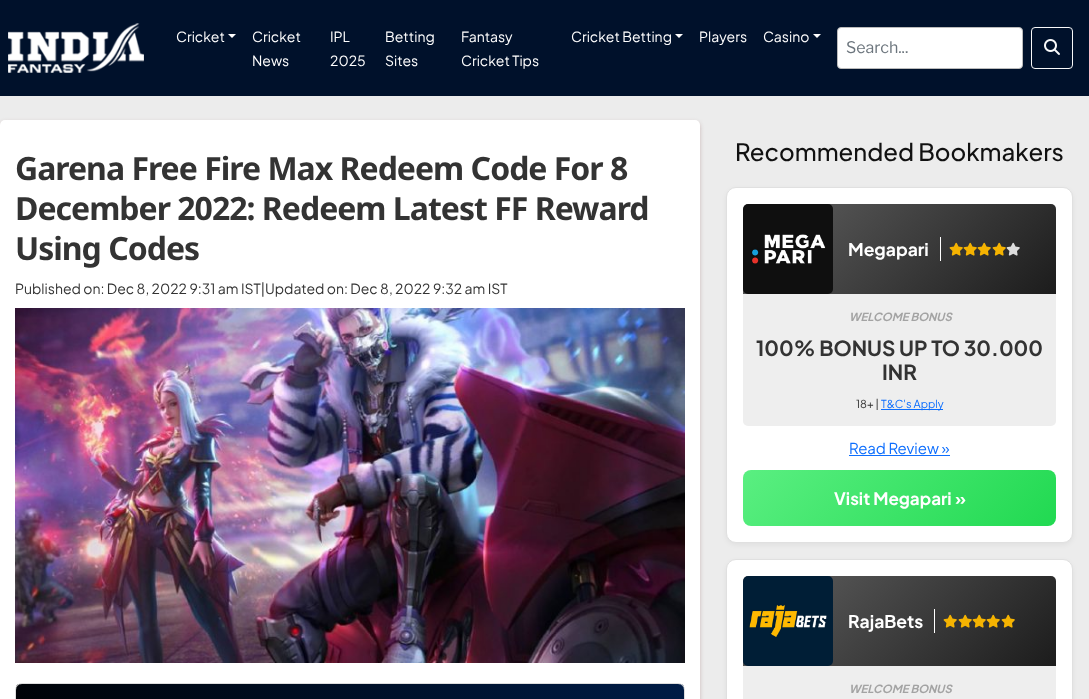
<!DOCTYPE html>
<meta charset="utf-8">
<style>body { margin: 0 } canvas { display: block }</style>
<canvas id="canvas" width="1089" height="699"></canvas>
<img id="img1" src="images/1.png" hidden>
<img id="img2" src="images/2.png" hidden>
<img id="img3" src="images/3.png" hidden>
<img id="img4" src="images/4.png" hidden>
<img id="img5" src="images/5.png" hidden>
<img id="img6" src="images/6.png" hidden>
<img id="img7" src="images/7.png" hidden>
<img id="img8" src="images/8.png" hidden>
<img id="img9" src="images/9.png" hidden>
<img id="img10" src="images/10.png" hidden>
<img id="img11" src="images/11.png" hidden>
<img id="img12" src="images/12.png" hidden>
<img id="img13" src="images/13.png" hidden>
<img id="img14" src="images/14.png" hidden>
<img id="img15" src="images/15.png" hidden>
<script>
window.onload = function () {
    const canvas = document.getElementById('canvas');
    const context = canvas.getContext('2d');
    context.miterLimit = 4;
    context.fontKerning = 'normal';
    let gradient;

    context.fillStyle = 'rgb(236, 236, 236)';
    context.fillRect(0, 0, 1089, 699);
    context.fillStyle = 'rgb(0, 17, 43)';
    context.fillRect(0, 0, 1089, 96);
    context.drawImage(document.getElementById('img1'), 8, 23, 136, 50);
    context.fillStyle = 'rgb(255, 255, 255)';
    context.beginPath();
    context.moveTo(228, 34);
    context.lineTo(236, 34);
    context.lineTo(232, 38);
    context.closePath();
    context.fill();
    context.beginPath();
    context.moveTo(675, 34);
    context.lineTo(683, 34);
    context.lineTo(679, 38);
    context.closePath();
    context.fill();
    context.beginPath();
    context.moveTo(813, 34);
    context.lineTo(821, 34);
    context.lineTo(817, 38);
    context.closePath();
    context.fill();
    context.beginPath();
    context.roundRect(837.5, 27.5, 185, 41, 3.5);
    context.fill();
    context.strokeStyle = 'rgb(187, 187, 187)';
    context.stroke();
    context.beginPath();
    context.roundRect(1031.5, 27.5, 41, 41, 3.5);
    context.strokeStyle = 'rgb(248, 249, 250)';
    context.stroke();
    context.drawImage(document.getElementById('img2'), 1044, 39, 16, 16);
    context.fillStyle = 'rgb(201, 183, 183)';
    context.filter = 'blur(2px)';
    context.beginPath();
    context.roundRect(0, 122, 700, 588, 5);
    context.fill();
    context.filter = 'none';
    context.fillStyle = 'rgb(255, 255, 255)';
    context.beginPath();
    context.roundRect(0, 120, 700, 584, 5);
    context.fill();
    context.drawImage(document.getElementById('img3'), 15, 308, 670, 355);
    context.save();
    context.beginPath();
    context.roundRect(15, 683, 670, 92, 7);
    context.clip();
    gradient = context.createLinearGradient(161, 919, 540, 540);
    gradient.addColorStop(0, 'rgb(0, 0, 0)');
    gradient.addColorStop(1, 'rgb(0, 28, 70)');
    context.fillStyle = gradient;
    context.fillRect(16, 684, 668, 15);
    context.restore();
    context.beginPath();
    context.roundRect(15.5, 683.5, 669, 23, 6.5);
    context.strokeStyle = 'rgb(221, 221, 221)';
    context.stroke();
    context.fillStyle = 'rgba(0, 0, 0, 0.05)';
    context.filter = 'blur(2.5px)';
    context.beginPath();
    context.roundRect(726, 189, 347, 356, 10);
    context.fill();
    context.filter = 'none';
    context.fillStyle = 'rgb(255, 255, 255)';
    context.beginPath();
    context.roundRect(726.5, 187.5, 346, 355, 9.5);
    context.fill();
    context.strokeStyle = 'rgb(224, 224, 224)';
    context.stroke();
    gradient = context.createLinearGradient(1000, 350, 799, 148);
    gradient.addColorStop(0, 'rgb(28, 28, 28)');
    gradient.addColorStop(1, 'rgb(97, 97, 97)');
    context.fillStyle = gradient;
    context.beginPath();
    context.roundRect(743, 204, 313, 90, [5, 5, 0, 0]);
    context.fill();
    context.drawImage(document.getElementById('img4'), 743, 204, 90, 90);
    context.fillStyle = 'rgb(255, 255, 255)';
    context.fillRect(940, 237, 1, 24);
    context.drawImage(document.getElementById('img5'), 949, 242, 14, 14);
    context.drawImage(document.getElementById('img6'), 963, 242, 14, 14);
    context.drawImage(document.getElementById('img7'), 977, 242, 14, 14);
    context.drawImage(document.getElementById('img8'), 992, 242, 14, 14);
    context.drawImage(document.getElementById('img9'), 1006, 242, 14, 14);
    context.fillStyle = 'rgb(238, 238, 238)';
    context.beginPath();
    context.roundRect(743, 294, 313, 132, [0, 0, 5, 5]);
    context.fill();
    context.fillStyle = 'rgb(13, 110, 253)';
    context.fillRect(881, 409, 62, 1);
    context.fillRect(849, 455, 101, 1);
    gradient = context.createLinearGradient(992, 590, 807, 406);
    gradient.addColorStop(0, 'rgb(33, 217, 81)');
    gradient.addColorStop(1, 'rgb(90, 239, 129)');
    context.fillStyle = gradient;
    context.beginPath();
    context.roundRect(743, 470, 313, 56, 8);
    context.fill();
    context.fillStyle = 'rgba(0, 0, 0, 0.05)';
    context.filter = 'blur(2.5px)';
    context.beginPath();
    context.roundRect(726, 561, 347, 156, 10);
    context.fill();
    context.filter = 'none';
    context.fillStyle = 'rgb(255, 255, 255)';
    context.beginPath();
    context.roundRect(726.5, 559.5, 346, 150, 9.5);
    context.fill();
    context.stroke();
    gradient = context.createLinearGradient(1000, 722, 799, 520);
    gradient.addColorStop(0, 'rgb(28, 28, 28)');
    gradient.addColorStop(1, 'rgb(97, 97, 97)');
    context.fillStyle = gradient;
    context.beginPath();
    context.roundRect(743, 576, 313, 90, [5, 5, 0, 0]);
    context.fill();
    context.drawImage(document.getElementById('img10'), 743, 576, 90, 90);
    context.fillStyle = 'rgb(255, 255, 255)';
    context.fillRect(934, 609, 1, 24);
    context.drawImage(document.getElementById('img11'), 943, 614, 14, 14);
    context.drawImage(document.getElementById('img12'), 958, 614, 14, 14);
    context.drawImage(document.getElementById('img13'), 972, 614, 14, 14);
    context.drawImage(document.getElementById('img14'), 986, 614, 14, 14);
    context.drawImage(document.getElementById('img15'), 1001, 614, 14, 14);
    context.fillStyle = 'rgb(238, 238, 238)';
    context.fillRect(743, 666, 313, 33);
    context.font = '14px Plus Jakarta Sans';
    context.fillStyle = 'rgb(255, 255, 255)';
    context.fillText('Cricket', 176, 42);
    context.fillText('Cricket', 252, 42);
    context.fillText('News', 252, 66);
    context.fillText('IPL', 330, 42);
    context.fillText('2025', 330, 66);
    context.fillText('Betting', 385, 42);
    context.fillText('Sites', 385, 66);
    context.fillText('Fantasy', 461, 42);
    context.fillText('Cricket Tips', 461, 66);
    context.fillText('Cricket Betting', 571, 42);
    context.fillText('Players', 699, 42);
    context.fillText('Casino', 763, 42);
    context.font = '16px Libre Franklin';
    context.fillStyle = 'rgb(108, 117, 125)';
    context.fillText('Search...', 846, 53);
    context.letterSpacing = '-1px';
    context.font = 'bold 32px Noto Sans';
    context.fillStyle = 'rgb(51, 51, 51)';
    context.fillText('Garena Free Fire Max Redeem Code For 8', 15, 180);
    context.fillText('December 2022: Redeem Latest FF Reward', 15, 220);
    context.fillText('Using Codes', 15, 260);
    context.letterSpacing = '0px';
    context.font = '14px Plus Jakarta Sans';
    context.fillText('Published on: Dec 8, 2022 9:31 am IST|Updated on: Dec 8, 2022 9:32 am IST', 15, 294);
    context.font = '500 24px Plus Jakarta Sans';
    context.fillStyle = 'rgb(17, 17, 17)';
    context.fillText('Recommended Bookmakers', 735, 161);
    context.font = 'bold 17.5px Plus Jakarta Sans';
    context.fillStyle = 'rgb(255, 255, 255)';
    context.fillText('Megapari', 848, 256);
    context.font = 'italic bold 11.25px Plus Jakarta Sans';
    context.fillStyle = 'rgb(163, 163, 163)';
    context.fillText('WELCOME BONUS', 849, 321);
    context.font = 'bold 20.75px Plus Jakarta Sans';
    context.fillStyle = 'rgb(51, 51, 51)';
    context.fillText('100% BONUS UP TO 30.000', 756, 356);
    context.fillText('INR', 882, 380);
    context.font = '11px Plus Jakarta Sans';
    context.fillText('18+ |', 856, 408);
    context.fillStyle = 'rgb(13, 110, 253)';
    context.fillText('T&C\'s Apply', 881, 408);
    context.font = '15px Plus Jakarta Sans';
    context.fillText('Read Review »', 849, 454);
    context.font = 'bold 17px Plus Jakarta Sans';
    context.fillStyle = 'rgb(255, 255, 255)';
    context.fillText('Visit Megapari »', 834, 505);
    context.font = 'bold 17.5px Plus Jakarta Sans';
    context.fillText('RajaBets', 848, 628);
    context.font = 'italic bold 11.25px Plus Jakarta Sans';
    context.fillStyle = 'rgb(163, 163, 163)';
    context.fillText('WELCOME BONUS', 849, 693);
};
</script>
